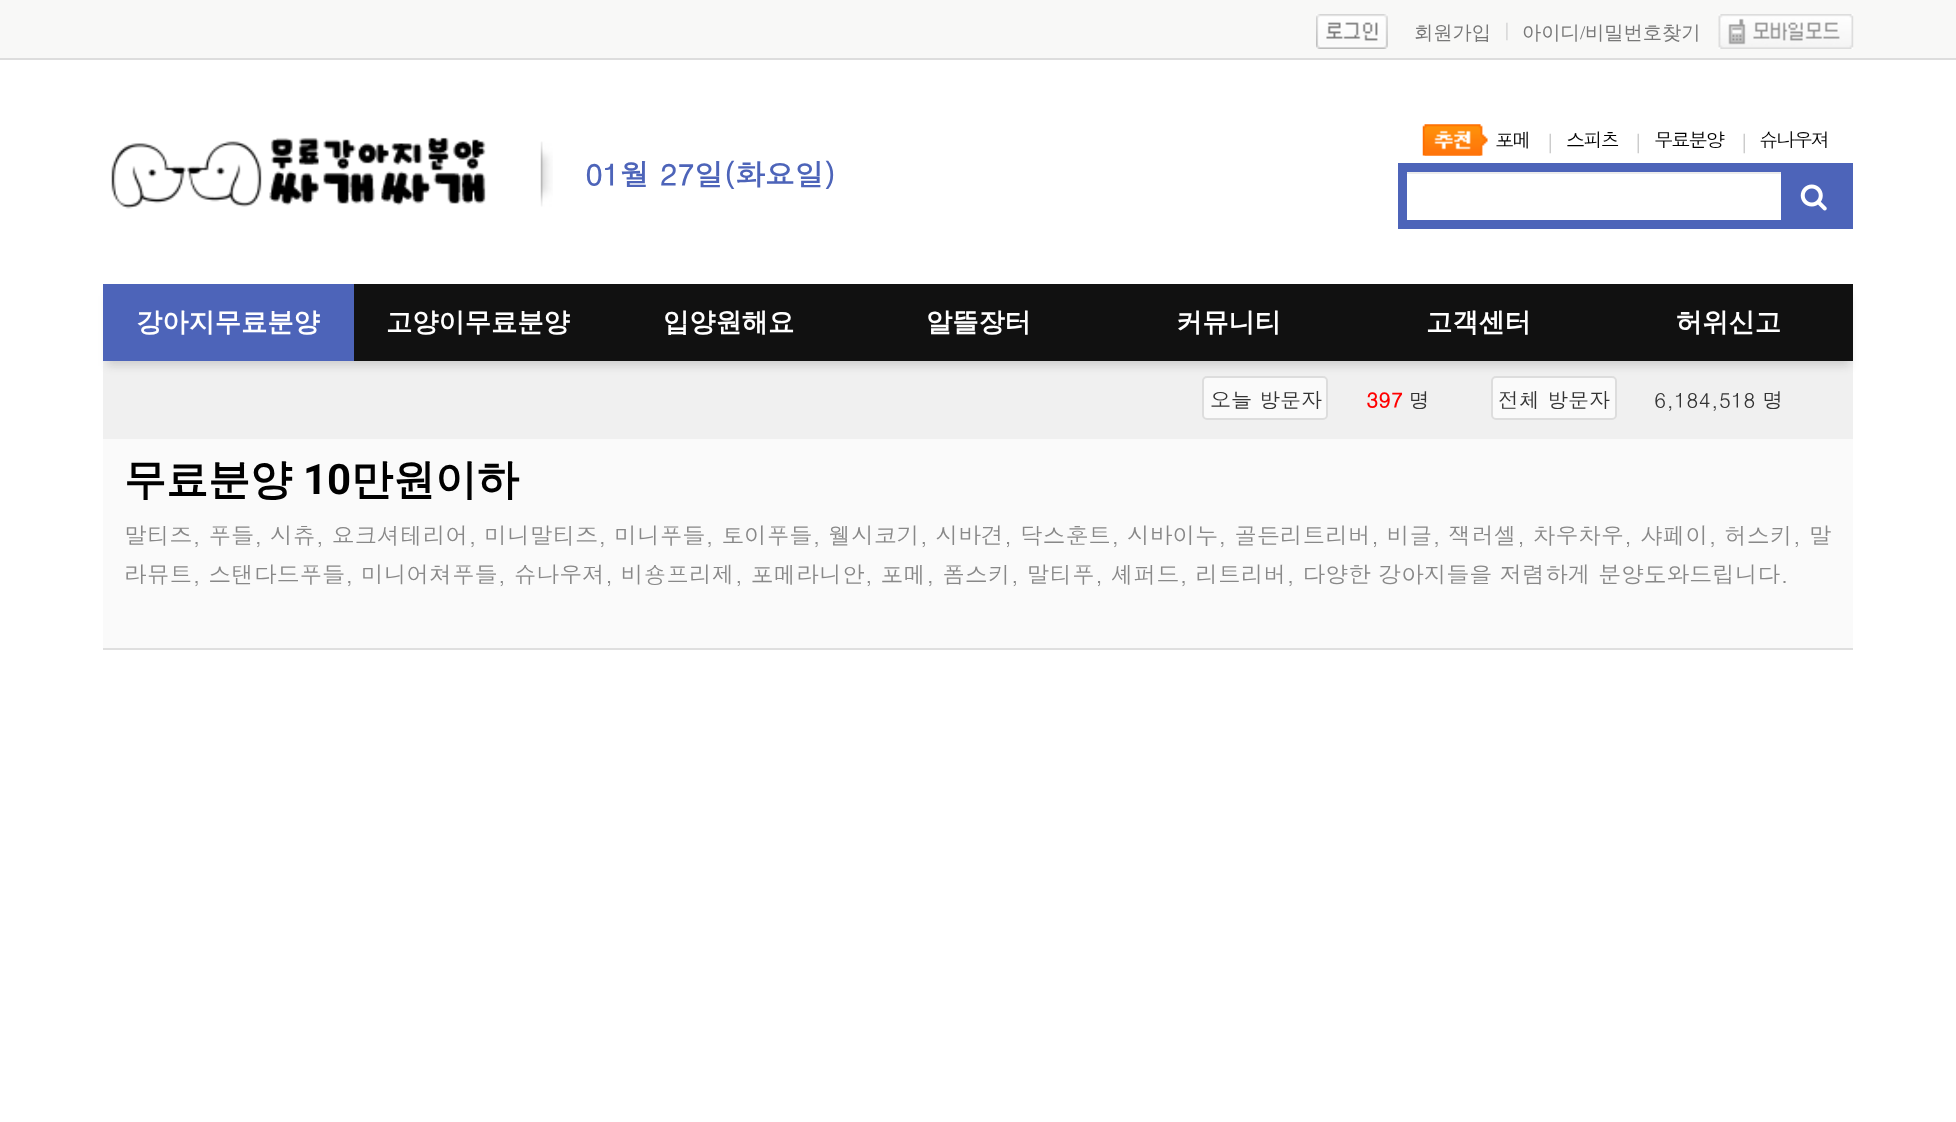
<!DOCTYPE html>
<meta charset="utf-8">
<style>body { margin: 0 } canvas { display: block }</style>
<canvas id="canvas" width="1956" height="1122"></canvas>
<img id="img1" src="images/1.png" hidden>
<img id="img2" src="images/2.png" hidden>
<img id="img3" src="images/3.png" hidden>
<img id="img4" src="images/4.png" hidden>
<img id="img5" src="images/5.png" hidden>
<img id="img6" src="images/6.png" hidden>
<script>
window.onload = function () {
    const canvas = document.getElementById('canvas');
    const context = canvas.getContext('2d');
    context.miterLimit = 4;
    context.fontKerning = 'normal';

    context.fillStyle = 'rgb(255, 255, 255)';
    context.fillRect(0, 0, 1956, 1122);
    context.fillStyle = 'rgb(248, 248, 247)';
    context.fillRect(0, 0, 1956, 58);
    context.fillStyle = 'rgb(221, 221, 221)';
    context.fillRect(0, 58, 1956, 2);
    context.drawImage(document.getElementById('img1'), 1316, 14, 72, 35);
    context.drawImage(document.getElementById('img2'), 1718, 14, 136, 35);
    context.drawImage(document.getElementById('img3'), 1422, 124, 66, 32);
    context.fillStyle = 'rgb(77, 100, 185)';
    context.fillRect(1398, 163, 455, 66);
    context.fillStyle = 'rgb(255, 255, 255)';
    context.fillRect(1407, 174, 374, 46);
    context.fillStyle = 'rgb(236, 236, 236)';
    context.fillRect(1407, 172, 375, 2);
    context.strokeStyle = 'rgb(77, 100, 185)';
    context.lineWidth = 2;
    context.strokeRect(1406, 171, 376, 50);
    context.drawImage(document.getElementById('img4'), 1800, 184, 27, 27);
    context.drawImage(document.getElementById('img5'), 111, 137, 375, 72);
    context.drawImage(document.getElementById('img6'), 540, 141, 13, 66);
    context.fillStyle = 'rgb(240, 240, 240)';
    context.fillRect(103, 361, 1750, 78);
    context.fillStyle = 'rgb(250, 250, 250)';
    context.beginPath();
    context.roundRect(1203, 377, 124, 42, 4);
    context.fill();
    context.strokeStyle = 'rgb(221, 221, 221)';
    context.stroke();
    context.beginPath();
    context.roundRect(1492, 377, 124, 42, 4);
    context.fill();
    context.stroke();
    context.fillStyle = 'rgba(25, 25, 25, 0.15)';
    context.filter = 'blur(4.5px)';
    context.beginPath();
    context.rect(107, 296, 1743, 70);
    context.fill();
    context.filter = 'none';
    context.fillStyle = 'rgb(17, 17, 17)';
    context.fillRect(354, 284, 1499, 77);
    context.fillStyle = 'rgb(77, 100, 185)';
    context.fillRect(103, 284, 251, 77);
    context.fillStyle = 'rgb(250, 250, 250)';
    context.fillRect(103, 439, 1750, 209);
    context.fillStyle = 'rgb(223, 223, 223)';
    context.fillRect(103, 648, 1750, 2);
    context.font = '500 19.25px WenQuanYi Zen Hei';
    context.fillStyle = 'rgb(119, 119, 119)';
    context.fillText('회원가입', 1414, 39);
    context.font = '19.25px Liberation Serif';
    context.fillStyle = 'rgb(199, 199, 199)';
    context.fillText('|', 1505, 36);
    context.font = '500 19.25px WenQuanYi Zen Hei';
    context.fillStyle = 'rgb(119, 119, 119)';
    context.fillText('아이디', 1522, 39);
    context.font = '19.25px Liberation Serif';
    context.fillText('/', 1580, 39);
    context.font = '500 19.25px WenQuanYi Zen Hei';
    context.fillText('비밀번호찾기', 1585, 39);
    context.letterSpacing = '-2px';
    context.font = '19.25px Dotum';
    context.fillStyle = 'rgb(0, 0, 0)';
    context.fillText('포메', 1495, 147);
    context.font = '21px Dotum';
    context.fillStyle = 'rgb(199, 199, 199)';
    context.fillText('|', 1545, 151);
    context.font = '19.25px Dotum';
    context.fillStyle = 'rgb(0, 0, 0)';
    context.fillText('스피츠', 1566, 147);
    context.font = '21px Dotum';
    context.fillStyle = 'rgb(199, 199, 199)';
    context.fillText('|', 1633, 151);
    context.font = '19.25px Dotum';
    context.fillStyle = 'rgb(0, 0, 0)';
    context.fillText('무료분양', 1654, 147);
    context.font = '21px Dotum';
    context.fillStyle = 'rgb(199, 199, 199)';
    context.fillText('|', 1739, 151);
    context.font = '19.25px Dotum';
    context.fillStyle = 'rgb(0, 0, 0)';
    context.fillText('슈나우져', 1759, 147);
    context.letterSpacing = '0px';
    context.font = 'bold 29.75px Dotum';
    context.fillStyle = 'rgb(77, 100, 185)';
    context.fillText('01월 27일(화요일)', 585, 186);
    context.font = 'bold 26.25px WenQuanYi Zen Hei';
    context.fillStyle = 'rgb(255, 255, 255)';
    context.fillText('강아지무료분양', 136, 331);
    context.fillText('고양이무료분양', 386, 331);
    context.fillText('입양원해요', 663, 331);
    context.fillText('알뜰장터', 926, 331);
    context.fillText('커뮤니티', 1176, 331);
    context.fillText('고객센터', 1426, 331);
    context.fillText('허위신고', 1676, 331);
    context.font = '21px Dotum';
    context.fillStyle = 'rgb(51, 51, 51)';
    context.fillText('오늘 방문자', 1210, 408);
    context.font = 'bold 21px Dotum';
    context.fillStyle = 'rgb(255, 0, 0)';
    context.fillText('397', 1366, 408);
    context.font = '21px Dotum';
    context.fillStyle = 'rgb(51, 51, 51)';
    context.fillText('명', 1409, 408);
    context.fillText('전체 방문자', 1498, 408);
    context.fillText('6,184,518 명', 1654, 408);
    context.font = 'bold 42px WenQuanYi Zen Hei';
    context.fillStyle = 'rgb(0, 0, 0)';
    context.fillText('무료분양', 124, 494);
    context.font = 'bold 42px Roboto';
    context.fillText('10', 303, 494);
    context.font = 'bold 42px WenQuanYi Zen Hei';
    context.fillText('만원이하', 351, 494);
    context.font = '22.75px Dotum';
    context.fillStyle = 'rgb(136, 136, 136)';
    context.fillText('말티즈, 푸들, 시츄, 요크셔테리어, 미니말티즈, 미니푸들, 토이푸들, 웰시코기, 시바견, 닥스훈트, 시바이누, 골든리트리버, 비글, 잭러셀, 차우차우, 샤페이, 허스키, 말', 124, 544);
    context.fillText('라뮤트, 스탠다드푸들, 미니어쳐푸들, 슈나우져, 비숑프리제, 포메라니안, 포메, 폼스키, 말티푸, 셰퍼드, 리트리버, 다양한 강아지들을 저렴하게 분양도와드립니다.', 124, 583);
};
</script>
